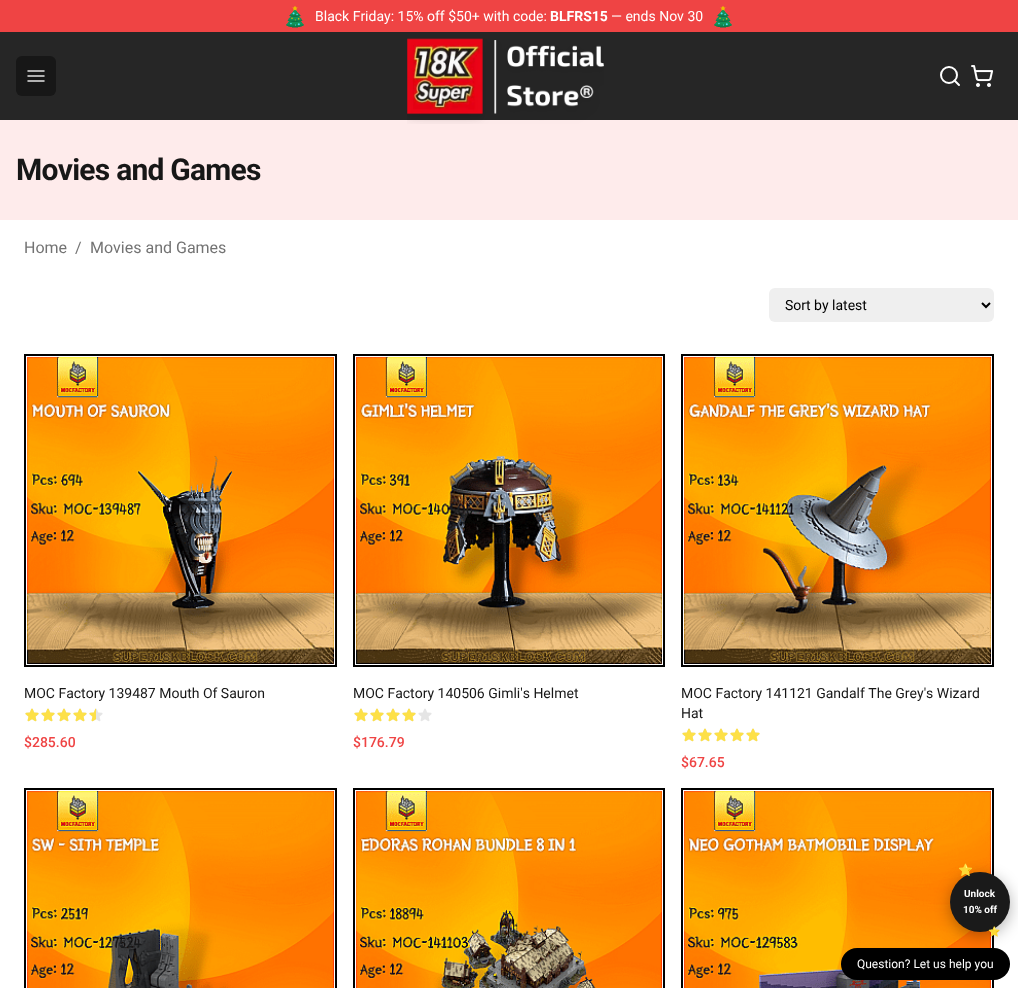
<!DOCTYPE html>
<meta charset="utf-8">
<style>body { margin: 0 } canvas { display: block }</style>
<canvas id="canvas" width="1018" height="988"></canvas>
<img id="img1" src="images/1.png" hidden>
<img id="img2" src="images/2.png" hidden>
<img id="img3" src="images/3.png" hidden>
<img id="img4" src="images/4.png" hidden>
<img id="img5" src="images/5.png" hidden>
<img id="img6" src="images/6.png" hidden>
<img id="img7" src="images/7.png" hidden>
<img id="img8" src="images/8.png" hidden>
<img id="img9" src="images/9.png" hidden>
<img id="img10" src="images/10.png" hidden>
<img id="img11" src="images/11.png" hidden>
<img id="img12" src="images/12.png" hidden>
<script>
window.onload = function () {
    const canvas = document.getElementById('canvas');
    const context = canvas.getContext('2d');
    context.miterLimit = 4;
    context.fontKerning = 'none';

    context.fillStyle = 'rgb(255, 255, 255)';
    context.fillRect(0, 0, 1018, 988);
    context.fillStyle = 'rgb(239, 68, 68)';
    context.fillRect(0, 0, 1018, 32);
    context.drawImage(document.getElementById('img1'), 286, 6, 18, 22);
    context.drawImage(document.getElementById('img1'), 714, 6, 18, 22);
    context.fillStyle = 'rgb(38, 38, 38)';
    context.fillRect(0, 32, 1018, 88);
    context.fillStyle = 'rgb(23, 23, 23)';
    context.beginPath();
    context.roundRect(16, 56, 40, 40, 6);
    context.fill();
    context.beginPath();
    context.moveTo(28, 71);
    context.lineTo(44, 71);
    context.moveTo(28, 76);
    context.lineTo(44, 76);
    context.moveTo(28, 81);
    context.lineTo(44, 81);
    context.strokeStyle = 'rgb(229, 229, 229)';
    context.lineWidth = 1.5;
    context.lineCap = 'round';
    context.lineJoin = 'round';
    context.stroke();
    context.fillStyle = 'rgb(254, 235, 235)';
    context.fillRect(0, 120, 1018, 100);
    context.drawImage(document.getElementById('img2'), 407, 38, 197, 86);
    context.beginPath();
    context.moveTo(959, 85);
    context.lineTo(954.5, 80.5);
    context.strokeStyle = 'rgb(255, 255, 255)';
    context.lineWidth = 2;
    context.stroke();
    context.beginPath();
    context.arc(949, 75, 8, 0, 2 * Math.PI);
    context.stroke();
    context.drawImage(document.getElementById('img3'), 971, 65, 23, 22);
    context.fillStyle = 'rgb(239, 239, 239)';
    context.beginPath();
    context.roundRect(769, 288, 225, 34, 6);
    context.fill();
    context.beginPath();
    context.moveTo(982, 303);
    context.lineTo(986, 307);
    context.lineTo(990, 303);
    context.strokeStyle = 'rgb(0, 0, 0)';
    context.lineCap = 'butt';
    context.lineJoin = 'miter';
    context.stroke();
    context.strokeRect(25, 355, 311, 311);
    context.drawImage(document.getElementById('img4'), 27, 357, 307, 307);
    context.drawImage(document.getElementById('img5'), 25, 708, 14, 14);
    context.drawImage(document.getElementById('img5'), 41, 708, 14, 14);
    context.drawImage(document.getElementById('img5'), 57, 708, 14, 14);
    context.drawImage(document.getElementById('img5'), 73, 708, 14, 14);
    context.drawImage(document.getElementById('img5'), 89, 708, 14, 14);
    context.drawImage(document.getElementById('img6'), 25, 708, 14, 14);
    context.drawImage(document.getElementById('img6'), 41, 708, 14, 14);
    context.drawImage(document.getElementById('img6'), 57, 708, 14, 14);
    context.drawImage(document.getElementById('img6'), 73, 708, 14, 14);
    context.drawImage(document.getElementById('img7'), 89, 708, 7, 14);
    context.strokeRect(354, 355, 310, 311);
    context.drawImage(document.getElementById('img8'), 356, 357, 307, 308);
    context.drawImage(document.getElementById('img5'), 354, 708, 14, 14);
    context.drawImage(document.getElementById('img5'), 370, 708, 14, 14);
    context.drawImage(document.getElementById('img5'), 386, 708, 14, 14);
    context.drawImage(document.getElementById('img5'), 402, 708, 14, 14);
    context.drawImage(document.getElementById('img5'), 418, 708, 14, 14);
    context.drawImage(document.getElementById('img6'), 354, 708, 14, 14);
    context.drawImage(document.getElementById('img6'), 370, 708, 14, 14);
    context.drawImage(document.getElementById('img6'), 386, 708, 14, 14);
    context.drawImage(document.getElementById('img6'), 402, 708, 14, 14);
    context.strokeRect(682, 355, 311, 311);
    context.drawImage(document.getElementById('img9'), 683, 357, 309, 307);
    context.drawImage(document.getElementById('img5'), 682, 728, 14, 14);
    context.drawImage(document.getElementById('img5'), 698, 728, 14, 14);
    context.drawImage(document.getElementById('img5'), 714, 728, 14, 14);
    context.drawImage(document.getElementById('img5'), 730, 728, 14, 14);
    context.drawImage(document.getElementById('img5'), 746, 728, 14, 14);
    context.drawImage(document.getElementById('img6'), 682, 728, 14, 14);
    context.drawImage(document.getElementById('img6'), 698, 728, 14, 14);
    context.drawImage(document.getElementById('img6'), 714, 728, 14, 14);
    context.drawImage(document.getElementById('img6'), 730, 728, 14, 14);
    context.drawImage(document.getElementById('img6'), 746, 728, 14, 14);
    context.strokeRect(25, 789, 311, 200);
    context.drawImage(document.getElementById('img10'), 27, 791, 307, 197);
    context.strokeRect(354, 789, 310, 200);
    context.drawImage(document.getElementById('img11'), 356, 791, 306, 197);
    context.strokeRect(682, 789, 311, 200);
    context.drawImage(document.getElementById('img12'), 684, 791, 307, 197);
    context.fillStyle = 'rgb(0, 0, 0)';
    context.beginPath();
    context.roundRect(841, 948, 169, 32, 16);
    context.fill();
    context.fillStyle = 'rgba(0, 0, 0, 0.3)';
    context.filter = 'blur(7.5px)';
    context.beginPath();
    context.roundRect(950, 876, 60, 60, 30);
    context.fill();
    context.filter = 'none';
    context.fillStyle = 'rgb(26, 26, 26)';
    context.beginPath();
    context.arc(980, 902, 30, 0, 2 * Math.PI);
    context.fill();
    context.font = '14px Roboto';
    context.fillStyle = 'rgb(255, 255, 255)';
    context.fillText('Black Friday: 15% off $50+ with code:', 315, 21);
    context.font = 'bold 14px Roboto';
    context.fillText('BLFRS15', 550, 21);
    context.font = '14px Roboto';
    context.fillText('— ends Nov 30', 611, 21);
    context.letterSpacing = '-0.75px';
    context.font = 'bold 30px Roboto';
    context.fillStyle = 'rgb(23, 23, 23)';
    context.fillText('Movies and Games', 16, 180);
    context.letterSpacing = '0px';
    context.font = '16px Roboto';
    context.fillStyle = 'rgb(115, 115, 115)';
    context.fillText('Home', 24, 253);
    context.fillText('/', 75, 253);
    context.fillText('Movies and Games', 90, 253);
    context.font = '14px Roboto';
    context.fillStyle = 'rgb(0, 0, 0)';
    context.fillText('Sort by latest', 785, 310);
    context.fillStyle = 'rgb(23, 23, 23)';
    context.fillText('MOC Factory 139487 Mouth Of Sauron', 24, 698);
    context.font = '500 14px Roboto';
    context.fillStyle = 'rgb(239, 68, 68)';
    context.fillText('$285.60', 24, 747);
    context.font = '14px Roboto';
    context.fillStyle = 'rgb(23, 23, 23)';
    context.fillText('MOC Factory 140506 Gimli\'s Helmet', 353, 698);
    context.font = '500 14px Roboto';
    context.fillStyle = 'rgb(239, 68, 68)';
    context.fillText('$176.79', 353, 747);
    context.font = '14px Roboto';
    context.fillStyle = 'rgb(23, 23, 23)';
    context.fillText('MOC Factory 141121 Gandalf The Grey\'s Wizard', 681, 698);
    context.fillText('Hat', 681, 718);
    context.font = '500 14px Roboto';
    context.fillStyle = 'rgb(239, 68, 68)';
    context.fillText('$67.65', 681, 767);
    context.font = 'bold 12px Noto Color Emoji';
    context.fillStyle = 'rgb(255, 215, 0)';
    context.fillText('⭐', 958, 874);
    context.font = 'bold 10px Roboto';
    context.fillStyle = 'rgb(255, 255, 255)';
    context.fillText('Unlock', 964, 897);
    context.fillText('10% off', 963, 913);
    context.font = 'bold 10px Noto Color Emoji';
    context.fillStyle = 'rgb(255, 215, 0)';
    context.fillText('⭐', 988, 935);
    context.font = '12px Roboto';
    context.fillStyle = 'rgb(255, 255, 255)';
    context.fillText('Question? Let us help you', 857, 968);
};
</script>
